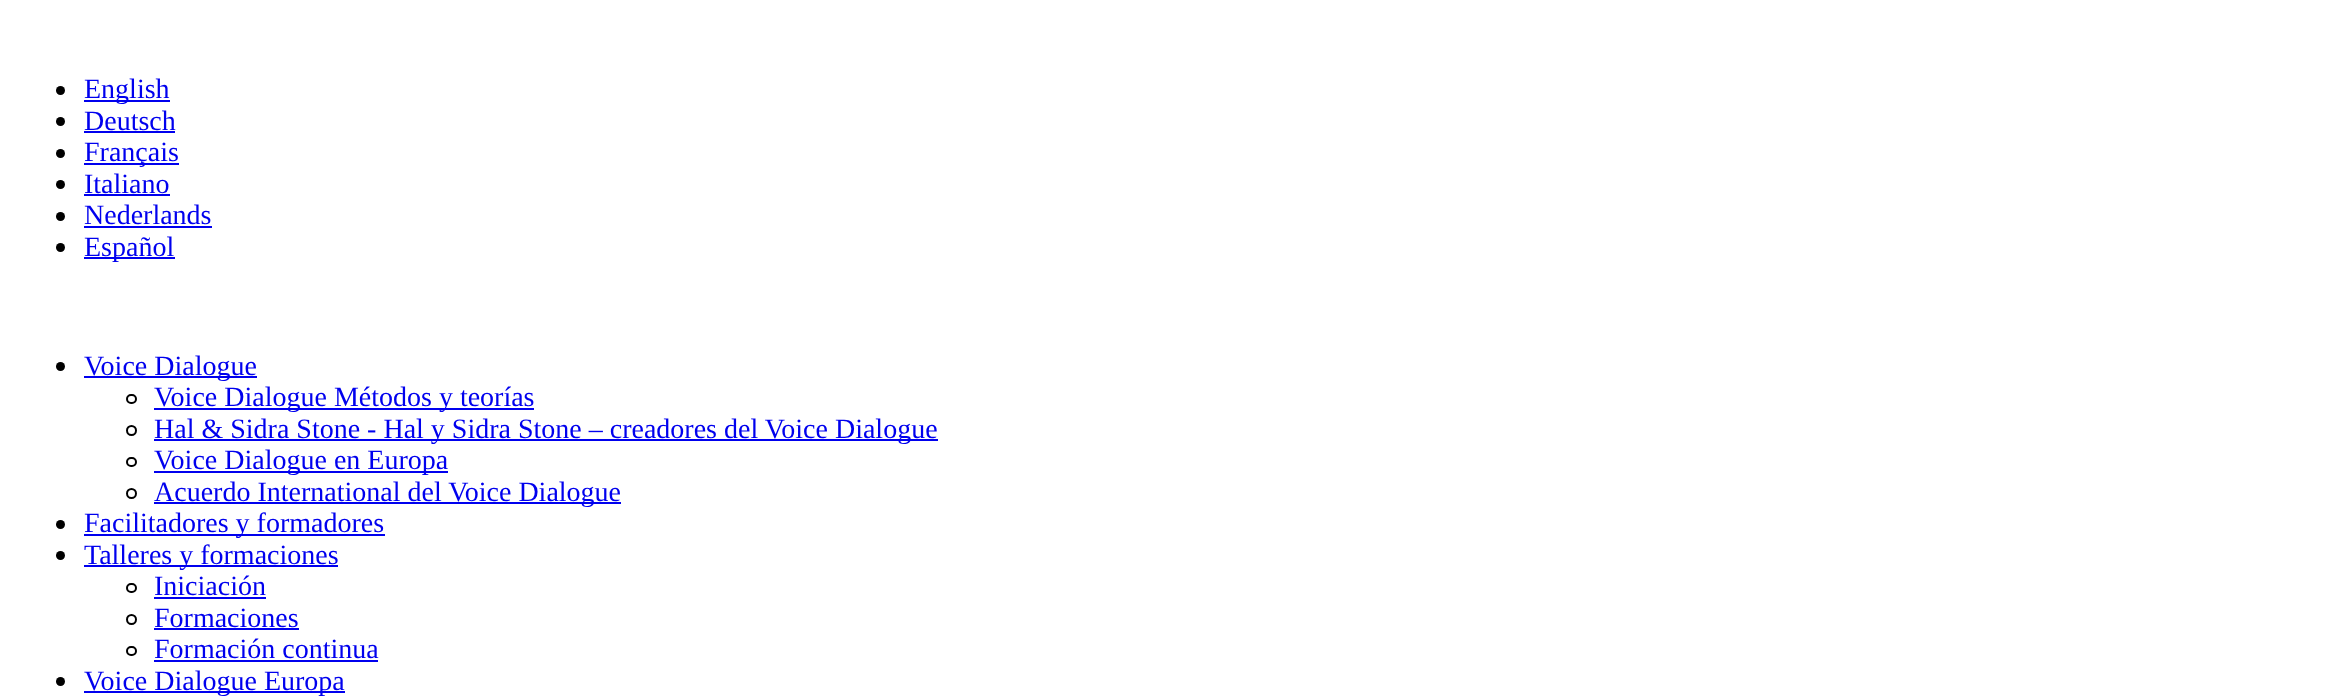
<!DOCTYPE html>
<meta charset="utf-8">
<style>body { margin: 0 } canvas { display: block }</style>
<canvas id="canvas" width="2352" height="700"></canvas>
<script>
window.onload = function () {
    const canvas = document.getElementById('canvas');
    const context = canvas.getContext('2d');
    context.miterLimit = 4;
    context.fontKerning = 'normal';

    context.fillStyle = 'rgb(255, 255, 255)';
    context.fillRect(0, 0, 2352, 700);
    context.fillStyle = 'rgb(0, 0, 0)';
    context.beginPath();
    context.arc(60.5, 90.5, 4.5, 0, 2 * Math.PI);
    context.fill();
    context.fillStyle = 'rgb(0, 0, 238)';
    context.fillRect(84, 100, 86, 2);
    context.fillStyle = 'rgb(0, 0, 0)';
    context.beginPath();
    context.arc(60.5, 121.5, 4.5, 0, 2 * Math.PI);
    context.fill();
    context.fillStyle = 'rgb(0, 0, 238)';
    context.fillRect(84, 131, 91, 2);
    context.fillStyle = 'rgb(0, 0, 0)';
    context.beginPath();
    context.arc(60.5, 153.5, 4.5, 0, 2 * Math.PI);
    context.fill();
    context.fillStyle = 'rgb(0, 0, 238)';
    context.fillRect(84, 163, 95, 2);
    context.fillStyle = 'rgb(0, 0, 0)';
    context.beginPath();
    context.arc(60.5, 184.5, 4.5, 0, 2 * Math.PI);
    context.fill();
    context.fillStyle = 'rgb(0, 0, 238)';
    context.fillRect(84, 194, 86, 2);
    context.fillStyle = 'rgb(0, 0, 0)';
    context.beginPath();
    context.arc(60.5, 216.5, 4.5, 0, 2 * Math.PI);
    context.fill();
    context.fillStyle = 'rgb(0, 0, 238)';
    context.fillRect(84, 226, 128, 2);
    context.fillStyle = 'rgb(0, 0, 0)';
    context.beginPath();
    context.arc(60.5, 247.5, 4.5, 0, 2 * Math.PI);
    context.fill();
    context.fillStyle = 'rgb(0, 0, 238)';
    context.fillRect(84, 257, 91, 2);
    context.fillStyle = 'rgb(0, 0, 0)';
    context.beginPath();
    context.arc(60.5, 366.5, 4.5, 0, 2 * Math.PI);
    context.fill();
    context.fillStyle = 'rgb(0, 0, 238)';
    context.fillRect(84, 376, 173, 2);
    context.beginPath();
    context.roundRect(127, 395, 9, 8, 4);
    context.strokeStyle = 'rgb(0, 0, 0)';
    context.lineWidth = 2;
    context.stroke();
    context.fillRect(154, 408, 380, 2);
    context.beginPath();
    context.arc(131.5, 430.5, 4.5, 0, 2 * Math.PI);
    context.stroke();
    context.fillRect(154, 439, 784, 2);
    context.beginPath();
    context.roundRect(127, 458, 9, 8, 4);
    context.stroke();
    context.fillRect(154, 471, 294, 2);
    context.beginPath();
    context.arc(131.5, 493.5, 4.5, 0, 2 * Math.PI);
    context.stroke();
    context.fillRect(154, 502, 467, 2);
    context.fillStyle = 'rgb(0, 0, 0)';
    context.beginPath();
    context.arc(60.5, 524.5, 4.5, 0, 2 * Math.PI);
    context.fill();
    context.fillStyle = 'rgb(0, 0, 238)';
    context.fillRect(84, 534, 301, 2);
    context.fillStyle = 'rgb(0, 0, 0)';
    context.beginPath();
    context.arc(60.5, 555.5, 4.5, 0, 2 * Math.PI);
    context.fill();
    context.fillStyle = 'rgb(0, 0, 238)';
    context.fillRect(84, 565, 254, 2);
    context.beginPath();
    context.roundRect(127, 584, 9, 8, 4);
    context.stroke();
    context.fillRect(154, 597, 112, 2);
    context.beginPath();
    context.arc(131.5, 619.5, 4.5, 0, 2 * Math.PI);
    context.stroke();
    context.fillRect(154, 628, 145, 2);
    context.beginPath();
    context.roundRect(127, 647, 9, 8, 4);
    context.stroke();
    context.fillRect(154, 660, 224, 2);
    context.fillStyle = 'rgb(0, 0, 0)';
    context.beginPath();
    context.arc(60.5, 681.5, 4.5, 0, 2 * Math.PI);
    context.fill();
    context.fillStyle = 'rgb(0, 0, 238)';
    context.fillRect(84, 691, 261, 2);
    context.font = '28px Liberation Serif';
    context.fillText('English', 84, 98);
    context.fillText('Deutsch', 84, 130);
    context.fillText('Français', 84, 161);
    context.fillText('Italiano', 84, 193);
    context.fillText('Nederlands', 84, 224);
    context.fillText('Español', 84, 256);
    context.fillText('Voice Dialogue', 84, 375);
    context.fillText('Voice Dialogue Métodos y teorías', 154, 406);
    context.fillText('Hal & Sidra Stone - Hal y Sidra Stone – creadores del Voice Dialogue', 154, 438);
    context.fillText('Voice Dialogue en Europa', 154, 469);
    context.fillText('Acuerdo International del Voice Dialogue', 154, 501);
    context.fillText('Facilitadores y formadores', 84, 532);
    context.fillText('Talleres y formaciones', 84, 564);
    context.fillText('Iniciación', 154, 595);
    context.fillText('Formaciones', 154, 627);
    context.fillText('Formación continua', 154, 658);
    context.fillText('Voice Dialogue Europa', 84, 690);
};
</script>
